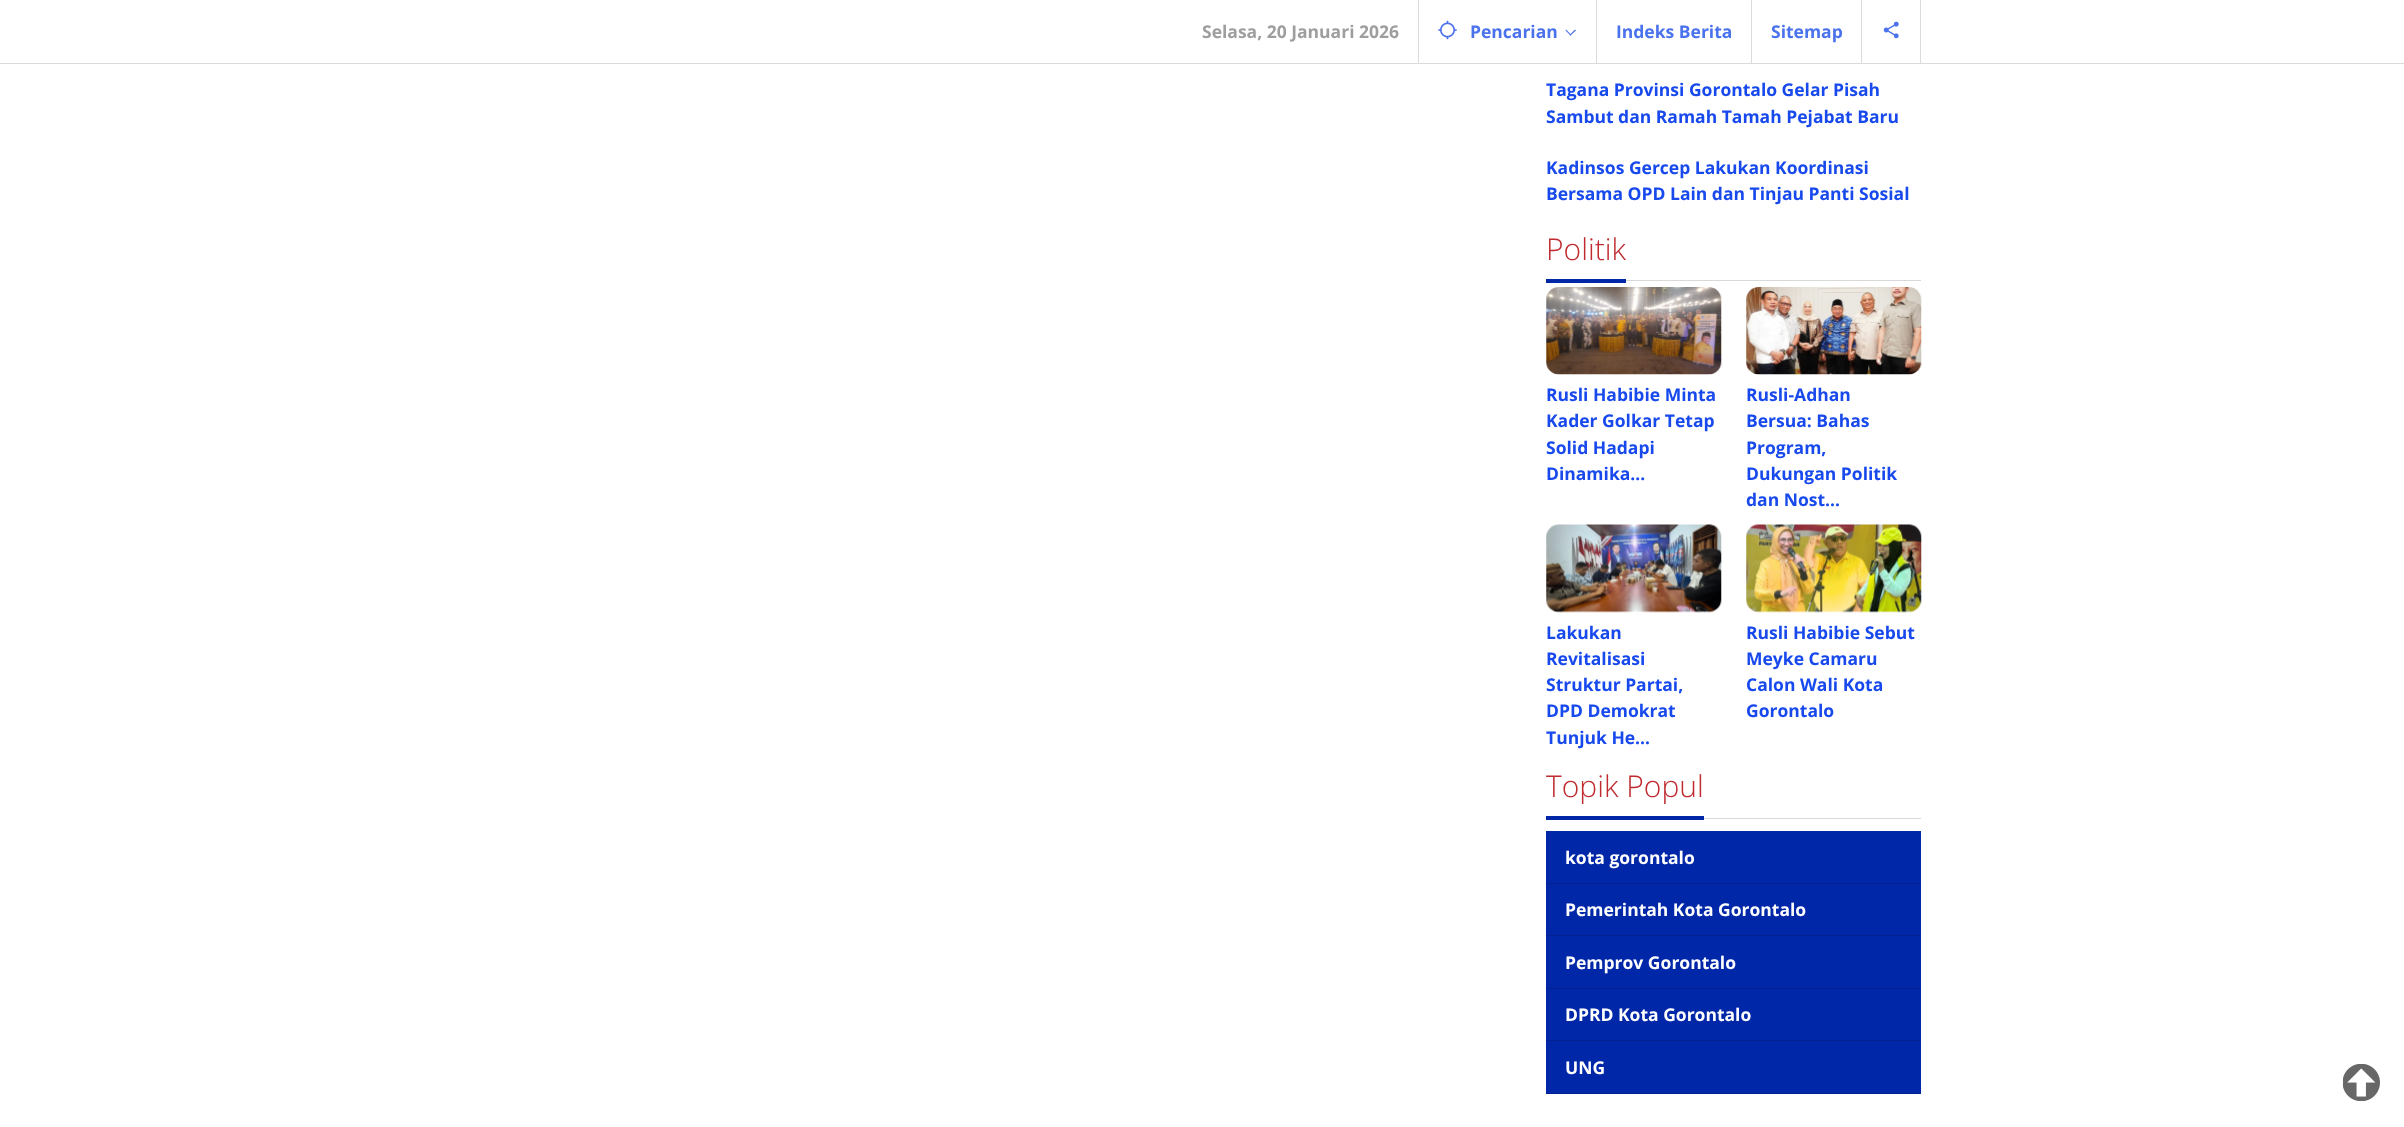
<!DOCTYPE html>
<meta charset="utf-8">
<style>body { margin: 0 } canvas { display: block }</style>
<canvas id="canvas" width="2404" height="1127"></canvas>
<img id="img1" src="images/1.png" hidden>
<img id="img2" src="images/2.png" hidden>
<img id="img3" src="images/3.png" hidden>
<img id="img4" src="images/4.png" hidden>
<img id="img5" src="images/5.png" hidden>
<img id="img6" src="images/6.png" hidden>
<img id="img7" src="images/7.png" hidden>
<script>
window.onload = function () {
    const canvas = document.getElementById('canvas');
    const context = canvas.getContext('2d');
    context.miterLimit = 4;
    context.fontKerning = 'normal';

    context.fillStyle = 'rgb(255, 255, 255)';
    context.fillRect(0, 0, 2404, 1127);
    context.fillStyle = 'rgb(219, 219, 219)';
    context.fillRect(0, 63, 2404, 1);
    context.fillRect(1418, 0, 1, 63);
    context.fillStyle = 'rgba(0, 0, 0, 0.14)';
    context.fillRect(1596, 0, 1, 63);
    context.drawImage(document.getElementById('img1'), 1438, 20, 19, 20);
    context.fillStyle = 'rgba(66, 107, 236, 0.95)';
    context.beginPath();
    context.moveTo(1575, 29.5);
    context.lineTo(1576, 30.5);
    context.lineTo(1570.5, 35.5);
    context.lineTo(1569.5, 35);
    context.closePath();
    context.fill();
    context.fillStyle = 'rgb(75, 114, 237)';
    context.beginPath();
    context.moveTo(1566, 29.5);
    context.lineTo(1571.5, 35);
    context.lineTo(1570.5, 35.5);
    context.lineTo(1565.5, 30.5);
    context.closePath();
    context.fill();
    context.fillStyle = 'rgba(0, 0, 0, 0.14)';
    context.fillRect(1751, 0, 1, 63);
    context.fillRect(1861, 0, 1, 63);
    context.fillStyle = 'rgb(219, 219, 219)';
    context.fillRect(1920, 0, 1, 63);
    context.drawImage(document.getElementById('img2'), 1883, 21, 16, 18);
    context.fillStyle = 'rgb(217, 217, 217)';
    context.fillRect(1626, 280, 295, 1);
    context.fillStyle = 'rgb(0, 39, 168)';
    context.fillRect(1546, 279, 80, 4);
    context.drawImage(document.getElementById('img3'), 1546, 287, 176, 88);
    context.drawImage(document.getElementById('img4'), 1746, 287, 176, 88);
    context.drawImage(document.getElementById('img5'), 1546, 524, 176, 89);
    context.drawImage(document.getElementById('img6'), 1746, 524, 176, 89);
    context.fillStyle = 'rgb(217, 217, 217)';
    context.fillRect(1704, 818, 217, 1);
    context.fillStyle = 'rgb(0, 39, 168)';
    context.fillRect(1546, 816, 158, 4);
    context.fillRect(1546, 831, 375, 262);
    context.fillStyle = 'rgb(0, 33, 143)';
    context.fillRect(1546, 883, 375, 1);
    context.fillRect(1546, 935, 375, 1);
    context.fillRect(1546, 988, 375, 1);
    context.fillRect(1546, 1040, 375, 1);
    context.fillRect(1546, 1093, 375, 1);
    context.drawImage(document.getElementById('img7'), 2343, 1064, 37, 37);
    context.font = 'bold 17.5px Open Sans';
    context.fillStyle = 'rgb(158, 158, 158)';
    context.fillText('Selasa, 20 Januari 2026', 1202, 38);
    context.fillStyle = 'rgb(75, 114, 237)';
    context.fillText('Pencarian', 1470, 38);
    context.fillText('Indeks Berita', 1616, 38);
    context.fillText('Sitemap', 1771, 38);
    context.fillStyle = 'rgb(23, 73, 237)';
    context.fillText('Tagana Provinsi Gorontalo Gelar Pisah', 1546, 96);
    context.fillText('Sambut dan Ramah Tamah Pejabat Baru', 1546, 123);
    context.fillText('Kadinsos Gercep Lakukan Koordinasi', 1546, 174);
    context.fillText('Bersama OPD Lain dan Tinjau Panti Sosial', 1546, 200);
    context.font = '300 30px Open Sans';
    context.fillStyle = 'rgb(191, 43, 48)';
    context.fillText('Politik', 1546, 260);
    context.font = 'bold 17.5px Open Sans';
    context.fillStyle = 'rgb(23, 73, 237)';
    context.fillText('Rusli Habibie Minta', 1546, 401);
    context.fillText('Kader Golkar Tetap', 1546, 427);
    context.fillText('Solid Hadapi', 1546, 454);
    context.fillText('Dinamika…', 1546, 480);
    context.fillText('Rusli-Adhan', 1746, 401);
    context.fillText('Bersua: Bahas', 1746, 427);
    context.fillText('Program,', 1746, 454);
    context.fillText('Dukungan Politik', 1746, 480);
    context.fillText('dan Nost…', 1746, 506);
    context.fillText('Lakukan', 1546, 639);
    context.fillText('Revitalisasi', 1546, 665);
    context.fillText('Struktur Partai,', 1546, 691);
    context.fillText('DPD Demokrat', 1546, 717);
    context.fillText('Tunjuk He…', 1546, 744);
    context.fillText('Rusli Habibie Sebut', 1746, 639);
    context.fillText('Meyke Camaru', 1746, 665);
    context.fillText('Calon Wali Kota', 1746, 691);
    context.fillText('Gorontalo', 1746, 717);
    context.font = '300 30px Open Sans';
    context.fillStyle = 'rgb(191, 43, 48)';
    context.fillText('Topik Popul', 1546, 797);
    context.font = 'bold 17.5px Open Sans';
    context.fillStyle = 'rgb(255, 255, 255)';
    context.fillText('kota gorontalo', 1565, 864);
    context.fillText('Pemerintah Kota Gorontalo', 1565, 916);
    context.fillText('Pemprov Gorontalo', 1565, 969);
    context.fillText('DPRD Kota Gorontalo', 1565, 1021);
    context.fillText('UNG', 1565, 1074);
};
</script>
